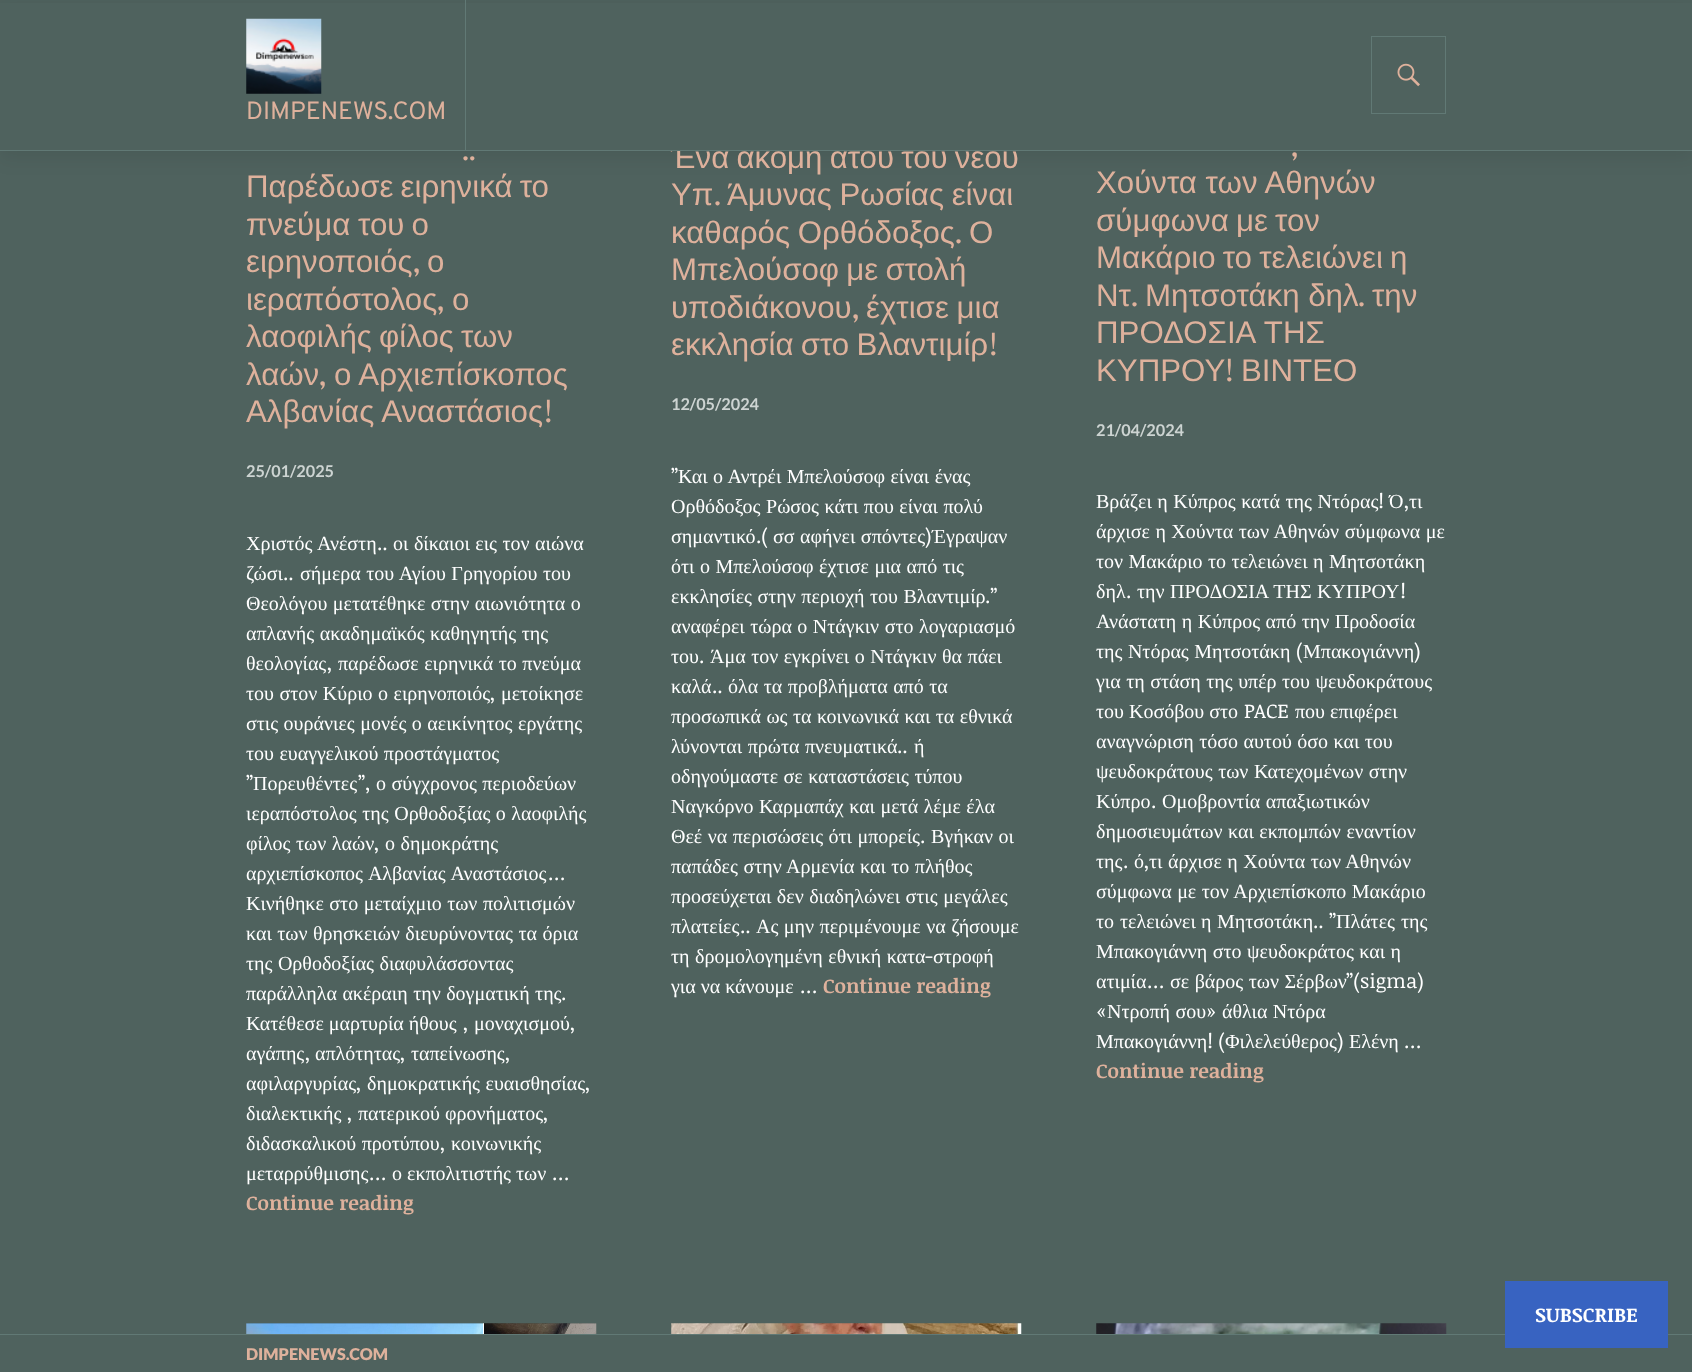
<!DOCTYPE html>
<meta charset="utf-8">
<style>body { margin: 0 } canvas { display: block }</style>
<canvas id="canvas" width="1692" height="1372"></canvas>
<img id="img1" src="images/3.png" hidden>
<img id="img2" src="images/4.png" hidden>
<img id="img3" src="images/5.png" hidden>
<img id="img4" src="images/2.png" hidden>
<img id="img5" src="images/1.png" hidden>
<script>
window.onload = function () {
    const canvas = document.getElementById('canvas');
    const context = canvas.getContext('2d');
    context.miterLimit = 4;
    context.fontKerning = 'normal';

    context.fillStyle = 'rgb(79, 98, 94)';
    context.fillRect(0, 0, 1692, 1372);
    context.fillStyle = 'rgba(0, 0, 0, 0.07)';
    context.filter = 'blur(9.5px)';
    context.beginPath();
    context.rect(0, 6, 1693, 152);
    context.fill();
    context.filter = 'none';
    context.drawImage(document.getElementById('img1'), 246, 1323, 351, 11);
    context.drawImage(document.getElementById('img2'), 671, 1323, 351, 11);
    context.drawImage(document.getElementById('img3'), 1096, 1323, 351, 11);
    context.fillStyle = 'rgb(97, 121, 117)';
    context.fillRect(0, 1334, 1692, 1);
    context.fillStyle = 'rgb(56, 99, 193)';
    context.fillRect(1505, 1281, 163, 67);
    context.font = '31.25px Overpass';
    context.fillStyle = 'rgb(222, 177, 156)';
    context.fillText('..', 462, 160);
    context.wordSpacing = '-1.5px';
    context.font = '31.25px Liberation Sans';
    context.fillText('Παρέδωσε ειρηνικά το', 246, 197);
    context.wordSpacing = '0px';
    context.fillText('πνεύμα', 246, 235);
    context.wordSpacing = '-1.5px';
    context.fillText('του ο', 358, 235);
    context.wordSpacing = '0px';
    context.fillText('ειρηνοποιός', 246, 272);
    context.font = '31.25px Overpass';
    context.fillText(',', 413, 272);
    context.font = '31.25px Liberation Sans';
    context.fillText('ο', 427, 272);
    context.fillText('ιεραπόστολος', 246, 310);
    context.font = '31.25px Overpass';
    context.fillText(',', 437, 310);
    context.font = '31.25px Liberation Sans';
    context.fillText('ο', 452, 310);
    context.wordSpacing = '-1.5px';
    context.fillText('λαοφιλής φίλος των', 246, 347);
    context.wordSpacing = '0px';
    context.fillText('λαών', 246, 385);
    context.font = '31.25px Overpass';
    context.fillText(',', 319, 385);
    context.font = '31.25px Liberation Sans';
    context.fillText('ο Αρχιεπίσκοπος', 334, 385);
    context.fillText('Αλβανίας Αναστάσιος', 246, 422);
    context.font = '31.25px Overpass';
    context.fillText('!', 544, 422);
    context.font = 'bold 16.25px Lato';
    context.fillStyle = 'rgb(205, 212, 210)';
    context.fillText('25/01/2025', 246, 477);
    context.wordSpacing = '0.5px';
    context.font = '20px Liberation Serif';
    context.fillStyle = 'rgb(255, 255, 255)';
    context.fillText('Χριστός Ανέστη', 246, 550);
    context.wordSpacing = '0px';
    context.font = '20px Noticia Text';
    context.fillText('..', 377, 550);
    context.wordSpacing = '0.5px';
    context.font = '20px Liberation Serif';
    context.fillText('οι δίκαιοι εις τον αιώνα', 393, 550);
    context.wordSpacing = '0px';
    context.fillText('ζώσι', 246, 580);
    context.font = '20px Noticia Text';
    context.fillText('..', 283, 580);
    context.wordSpacing = '0.5px';
    context.font = '20px Liberation Serif';
    context.fillText('σήμερα του Αγίου Γρηγορίου του', 300, 580);
    context.fillText('Θεολόγου μετατέθηκε στην αιωνιότητα ο', 246, 610);
    context.fillText('απλανής ακαδημαϊκός καθηγητής της', 246, 640);
    context.wordSpacing = '0px';
    context.fillText('θεολογίας', 246, 670);
    context.font = '20px Noticia Text';
    context.fillText(',', 327, 670);
    context.wordSpacing = '0.5px';
    context.font = '20px Liberation Serif';
    context.fillText('παρέδωσε ειρηνικά το πνεύμα', 338, 670);
    context.fillText('του στον Κύριο ο ειρηνοποιός', 246, 700);
    context.wordSpacing = '0px';
    context.font = '20px Noticia Text';
    context.fillText(',', 490, 700);
    context.font = '20px Liberation Serif';
    context.fillText('μετοίκησε', 501, 700);
    context.wordSpacing = '0.5px';
    context.fillText('στις ουράνιες μονές ο αεικίνητος εργάτης', 246, 730);
    context.fillText('του ευαγγελικού προστάγματος', 246, 760);
    context.wordSpacing = '0px';
    context.font = '20px Noticia Text';
    context.fillText('”', 246, 790);
    context.font = '20px Liberation Serif';
    context.fillText('Πορευθέντες', 253, 790);
    context.font = '20px Noticia Text';
    context.fillText('”,', 358, 790);
    context.wordSpacing = '0.5px';
    context.font = '20px Liberation Serif';
    context.fillText('ο σύγχρονος περιοδεύων', 376, 790);
    context.fillText('ιεραπόστολος της Ορθοδοξίας ο λαοφιλής', 246, 820);
    context.fillText('φίλος των λαών', 246, 850);
    context.wordSpacing = '0px';
    context.font = '20px Noticia Text';
    context.fillText(',', 374, 850);
    context.wordSpacing = '0.5px';
    context.font = '20px Liberation Serif';
    context.fillText('ο δημοκράτης', 385, 850);
    context.wordSpacing = '1px';
    context.fillText('αρχιεπίσκοπος Αλβανίας Αναστάσιος', 246, 880);
    context.wordSpacing = '0px';
    context.font = '20px Noticia Text';
    context.fillText('…', 548, 880);
    context.wordSpacing = '0.5px';
    context.font = '20px Liberation Serif';
    context.fillText('Κινήθηκε στο μεταίχμιο των πολιτισμών', 246, 910);
    context.fillText('και των θρησκειών διευρύνοντας τα όρια', 246, 940);
    context.fillText('της Ορθοδοξίας διαφυλάσσοντας', 246, 970);
    context.fillText('παράλληλα ακέραιη την δογματική της', 246, 1000);
    context.wordSpacing = '0px';
    context.font = '20px Noticia Text';
    context.fillText('.', 561, 1000);
    context.font = '20px Liberation Serif';
    context.fillText('Κατέθεσε μαρτυρία ήθους', 246, 1030);
    context.font = '20px Noticia Text';
    context.fillText(',', 463, 1030);
    context.font = '20px Liberation Serif';
    context.fillText('μοναχισμού', 474, 1030);
    context.font = '20px Noticia Text';
    context.fillText(',', 570, 1030);
    context.font = '20px Liberation Serif';
    context.fillText('αγάπης', 246, 1060);
    context.font = '20px Noticia Text';
    context.fillText(',', 305, 1060);
    context.font = '20px Liberation Serif';
    context.fillText('απλότητας', 315, 1060);
    context.font = '20px Noticia Text';
    context.fillText(',', 400, 1060);
    context.font = '20px Liberation Serif';
    context.fillText('ταπείνωσης', 411, 1060);
    context.font = '20px Noticia Text';
    context.fillText(',', 505, 1060);
    context.font = '20px Liberation Serif';
    context.fillText('αφιλαργυρίας', 246, 1090);
    context.font = '20px Noticia Text';
    context.fillText(',', 356, 1090);
    context.wordSpacing = '0.5px';
    context.font = '20px Liberation Serif';
    context.fillText('δημοκρατικής ευαισθησίας', 367, 1090);
    context.wordSpacing = '0px';
    context.font = '20px Noticia Text';
    context.fillText(',', 585, 1090);
    context.font = '20px Liberation Serif';
    context.fillText('διαλεκτικής', 246, 1120);
    context.font = '20px Noticia Text';
    context.fillText(',', 347, 1120);
    context.font = '20px Liberation Serif';
    context.fillText('πατερικού φρονήματος', 358, 1120);
    context.font = '20px Noticia Text';
    context.fillText(',', 543, 1120);
    context.wordSpacing = '0.5px';
    context.font = '20px Liberation Serif';
    context.fillText('διδασκαλικού προτύπου', 246, 1150);
    context.wordSpacing = '0px';
    context.font = '20px Noticia Text';
    context.fillText(',', 440, 1150);
    context.font = '20px Liberation Serif';
    context.fillText('κοινωνικής', 451, 1150);
    context.fillText('μεταρρύθμισης', 246, 1180);
    context.font = '20px Noticia Text';
    context.fillText('…', 369, 1180);
    context.font = '20px Liberation Serif';
    context.fillText('ο εκπολιτιστής των', 392, 1180);
    context.font = '20px Noticia Text';
    context.fillText('…', 552, 1180);
    context.font = 'bold 20px Noticia Text';
    context.fillStyle = 'rgb(222, 177, 156)';
    context.fillText('Continue reading', 246, 1210);
    context.wordSpacing = '-1.5px';
    context.font = '31.25px Liberation Sans';
    context.fillText('Ένα ακόμη ατού του νέου', 671, 168);
    context.fillStyle = 'rgb(79, 98, 94)';
    context.fillRect(0, 3, 1692, 147);
    context.strokeStyle = 'rgb(97, 121, 117)';
    context.strokeRect(1371.5, 36.5, 74, 77);
    context.drawImage(document.getElementById('img4'), 1397, 63, 23, 24);
    context.fillStyle = 'rgb(97, 121, 117)';
    context.fillRect(465, 0, 1, 150);
    context.wordSpacing = '0px';
    context.font = '25px Overpass';
    context.fillStyle = 'rgb(222, 177, 156)';
    context.fillText('DIMPENEWS.COM', 246, 119);
    context.drawImage(document.getElementById('img5'), 246, 18, 76, 76);
    context.fillStyle = 'rgb(97, 121, 117)';
    context.fillRect(0, 150, 1692, 1);
    context.font = '31.25px Liberation Sans';
    context.fillStyle = 'rgb(222, 177, 156)';
    context.fillText('Υπ', 671, 205);
    context.font = '31.25px Overpass';
    context.fillText('.', 714, 205);
    context.wordSpacing = '-1px';
    context.font = '31.25px Liberation Sans';
    context.fillText('Άμυνας Ρωσίας είναι', 727, 205);
    context.fillText('καθαρός Ορθόδοξος', 671, 243);
    context.wordSpacing = '0px';
    context.font = '31.25px Overpass';
    context.fillText('.', 955, 243);
    context.font = '31.25px Liberation Sans';
    context.fillText('Ο', 969, 243);
    context.wordSpacing = '-1.5px';
    context.fillText('Μπελούσοφ με στολή', 671, 280);
    context.wordSpacing = '0px';
    context.fillText('υποδιάκονου', 671, 318);
    context.font = '31.25px Overpass';
    context.fillText(',', 852, 318);
    context.wordSpacing = '-1px';
    context.font = '31.25px Liberation Sans';
    context.fillText('έχτισε μια', 866, 318);
    context.wordSpacing = '-1.5px';
    context.fillText('εκκλησία στο Βλαντιμίρ', 671, 355);
    context.wordSpacing = '0px';
    context.font = '31.25px Overpass';
    context.fillText('!', 989, 355);
    context.font = 'bold 16.25px Lato';
    context.fillStyle = 'rgb(205, 212, 210)';
    context.fillText('12/05/2024', 671, 410);
    context.font = '20px Noticia Text';
    context.fillStyle = 'rgb(255, 255, 255)';
    context.fillText('”', 671, 483);
    context.wordSpacing = '0.5px';
    context.font = '20px Liberation Serif';
    context.fillText('Και ο Αντρέι Μπελούσοφ είναι ένας', 678, 483);
    context.fillText('Ορθόδοξος Ρώσος κάτι που είναι πολύ', 671, 513);
    context.wordSpacing = '0px';
    context.fillText('σημαντικό', 671, 543);
    context.font = '20px Noticia Text';
    context.fillText('.(', 756, 543);
    context.wordSpacing = '0.5px';
    context.font = '20px Liberation Serif';
    context.fillText('σσ αφήνει σπόντες', 773, 543);
    context.wordSpacing = '0px';
    context.font = '20px Noticia Text';
    context.fillText(')', 925, 543);
    context.font = '20px Liberation Serif';
    context.fillText('Έγραψαν', 932, 543);
    context.wordSpacing = '0.5px';
    context.fillText('ότι ο Μπελούσοφ έχτισε μια από τις', 671, 573);
    context.fillText('εκκλησίες στην περιοχή του Βλαντιμίρ', 671, 603);
    context.wordSpacing = '0px';
    context.font = '20px Noticia Text';
    context.fillText('.”', 985, 603);
    context.wordSpacing = '0.5px';
    context.font = '20px Liberation Serif';
    context.fillText('αναφέρει τώρα ο Ντάγκιν στο λογαριασμό', 671, 633);
    context.wordSpacing = '0px';
    context.fillText('του', 671, 663);
    context.font = '20px Noticia Text';
    context.fillText('.', 699, 663);
    context.wordSpacing = '0.5px';
    context.font = '20px Liberation Serif';
    context.fillText('Άμα τον εγκρίνει ο Ντάγκιν θα πάει', 710, 663);
    context.wordSpacing = '0px';
    context.fillText('καλά', 671, 693);
    context.font = '20px Noticia Text';
    context.fillText('..', 712, 693);
    context.wordSpacing = '0.5px';
    context.font = '20px Liberation Serif';
    context.fillText('όλα τα προβλήματα από τα', 728, 693);
    context.fillText('προσωπικά ως τα κοινωνικά και τα εθνικά', 671, 723);
    context.fillText('λύνονται πρώτα πνευματικά', 671, 753);
    context.wordSpacing = '0px';
    context.font = '20px Noticia Text';
    context.fillText('..', 897, 753);
    context.font = '20px Liberation Serif';
    context.fillText('ή', 914, 753);
    context.wordSpacing = '0.5px';
    context.fillText('οδηγούμαστε σε καταστάσεις τύπου', 671, 783);
    context.fillText('Ναγκόρνο Καρμαπάχ και μετά λέμε έλα', 671, 813);
    context.fillText('Θεέ να περισώσεις ότι μπορείς', 671, 843);
    context.wordSpacing = '0px';
    context.font = '20px Noticia Text';
    context.fillText('.', 920, 843);
    context.wordSpacing = '0.5px';
    context.font = '20px Liberation Serif';
    context.fillText('Βγήκαν οι', 931, 843);
    context.fillText('παπάδες στην Αρμενία και το πλήθος', 671, 873);
    context.fillText('προσεύχεται δεν διαδηλώνει στις μεγάλες', 671, 903);
    context.wordSpacing = '0px';
    context.fillText('πλατείες', 671, 933);
    context.font = '20px Noticia Text';
    context.fillText('..', 740, 933);
    context.wordSpacing = '0.5px';
    context.font = '20px Liberation Serif';
    context.fillText('Ας μην περιμένουμε να ζήσουμε', 756, 933);
    context.fillText('τη δρομολογημένη εθνική κατα', 671, 963);
    context.wordSpacing = '0px';
    context.font = '20px Noticia Text';
    context.fillText('-', 925, 963);
    context.font = '20px Liberation Serif';
    context.fillText('στροφή', 933, 963);
    context.fillText('για να κάνουμε', 671, 993);
    context.font = '20px Noticia Text';
    context.fillText('…', 800, 993);
    context.font = 'bold 20px Noticia Text';
    context.fillStyle = 'rgb(222, 177, 156)';
    context.fillText('Continue reading', 823, 993);
    context.font = '31.25px Overpass';
    context.fillText(',', 1291, 156);
    context.font = '31.25px Liberation Sans';
    context.fillText('Χούντα των Αθηνών', 1096, 193);
    context.wordSpacing = '-1.5px';
    context.fillText('σύμφωνα με τον', 1096, 231);
    context.fillText('Μακάριο το τελειώνει η', 1096, 268);
    context.wordSpacing = '0px';
    context.fillText('Ντ', 1096, 306);
    context.font = '31.25px Overpass';
    context.fillText('.', 1131, 306);
    context.font = '31.25px Liberation Sans';
    context.fillText('Μητσοτάκη δηλ', 1145, 306);
    context.font = '31.25px Overpass';
    context.fillText('.', 1358, 306);
    context.font = '31.25px Liberation Sans';
    context.fillText('την', 1372, 306);
    context.wordSpacing = '1px';
    context.fillText('ΠΡΟΔΟΣΙΑ ΤΗΣ', 1096, 343);
    context.wordSpacing = '0px';
    context.fillText('ΚΥΠΡΟΥ', 1096, 381);
    context.font = '31.25px Overpass';
    context.fillText('!', 1225, 381);
    context.font = '31.25px Liberation Sans';
    context.fillText('ΒΙΝΤΕΟ', 1241, 381);
    context.font = 'bold 16.25px Lato';
    context.fillStyle = 'rgb(205, 212, 210)';
    context.fillText('21/04/2024', 1096, 436);
    context.wordSpacing = '0.5px';
    context.font = '20px Liberation Serif';
    context.fillStyle = 'rgb(255, 255, 255)';
    context.fillText('Βράζει η Κύπρος κατά της Ντόρας', 1096, 508);
    context.wordSpacing = '0px';
    context.font = '20px Noticia Text';
    context.fillText('!', 1378, 508);
    context.font = '20px Liberation Serif';
    context.fillText('Ό', 1389, 508);
    context.font = '20px Noticia Text';
    context.fillText(',', 1404, 508);
    context.font = '20px Liberation Serif';
    context.fillText('τι', 1409, 508);
    context.wordSpacing = '0.5px';
    context.fillText('άρχισε η Χούντα των Αθηνών σύμφωνα με', 1096, 538);
    context.fillText('τον Μακάριο το τελειώνει η Μητσοτάκη', 1096, 568);
    context.wordSpacing = '0px';
    context.fillText('δηλ', 1096, 598);
    context.font = '20px Noticia Text';
    context.fillText('.', 1126, 598);
    context.wordSpacing = '0.5px';
    context.font = '20px Liberation Serif';
    context.fillText('την ΠΡΟΔΟΣΙΑ ΤΗΣ ΚΥΠΡΟΥ', 1137, 598);
    context.wordSpacing = '0px';
    context.font = '20px Noticia Text';
    context.fillText('!', 1400, 598);
    context.wordSpacing = '0.5px';
    context.font = '20px Liberation Serif';
    context.fillText('Ανάστατη η Κύπρος από την Προδοσία', 1096, 628);
    context.fillText('της Ντόρας Μητσοτάκη', 1096, 658);
    context.wordSpacing = '0px';
    context.font = '20px Noticia Text';
    context.fillText('(', 1296, 658);
    context.font = '20px Liberation Serif';
    context.fillText('Μπακογιάννη', 1303, 658);
    context.font = '20px Noticia Text';
    context.fillText(')', 1414, 658);
    context.wordSpacing = '0.5px';
    context.font = '20px Liberation Serif';
    context.fillText('για τη στάση της υπέρ του ψευδοκράτους', 1096, 688);
    context.wordSpacing = '0px';
    context.fillText('του Κοσόβου στο', 1096, 718);
    context.font = '20px Noticia Text';
    context.fillText('PACE', 1244, 718);
    context.font = '20px Liberation Serif';
    context.fillText('που επιφέρει', 1295, 718);
    context.wordSpacing = '0.5px';
    context.fillText('αναγνώριση τόσο αυτού όσο και του', 1096, 748);
    context.fillText('ψευδοκράτους των Κατεχομένων στην', 1096, 778);
    context.wordSpacing = '0px';
    context.fillText('Κύπρο', 1096, 808);
    context.font = '20px Noticia Text';
    context.fillText('.', 1151, 808);
    context.wordSpacing = '0.5px';
    context.font = '20px Liberation Serif';
    context.fillText('Ομοβροντία απαξιωτικών', 1162, 808);
    context.fillText('δημοσιευμάτων και εκπομπών εναντίον', 1096, 838);
    context.wordSpacing = '0px';
    context.fillText('της', 1096, 868);
    context.font = '20px Noticia Text';
    context.fillText('.', 1123, 868);
    context.font = '20px Liberation Serif';
    context.fillText('ό', 1134, 868);
    context.font = '20px Noticia Text';
    context.fillText(',', 1144, 868);
    context.wordSpacing = '0.5px';
    context.font = '20px Liberation Serif';
    context.fillText('τι άρχισε η Χούντα των Αθηνών', 1149, 868);
    context.fillText('σύμφωνα με τον Αρχιεπίσκοπο Μακάριο', 1096, 898);
    context.wordSpacing = '0px';
    context.fillText('το', 1096, 928);
    context.fillText('τελειώνει', 1120, 928);
    context.fillText('η', 1201, 928);
    context.fillText('Μητσοτάκη', 1217, 928);
    context.font = '20px Noticia Text';
    context.fillText('.. ”', 1313, 928);
    context.font = '20px Liberation Serif';
    context.fillText('Πλάτες', 1336, 928);
    context.fillText('της', 1401, 928);
    context.wordSpacing = '0.5px';
    context.fillText('Μπακογιάννη στο ψευδοκράτος και η', 1096, 958);
    context.wordSpacing = '0px';
    context.fillText('ατιμία', 1096, 988);
    context.font = '20px Noticia Text';
    context.fillText('…', 1147, 988);
    context.wordSpacing = '0.5px';
    context.font = '20px Liberation Serif';
    context.fillText('σε βάρος των Σέρβων', 1170, 988);
    context.wordSpacing = '0px';
    context.font = '20px Noticia Text';
    context.fillText('”(sigma)', 1346, 988);
    context.fillText('«', 1096, 1018);
    context.wordSpacing = '0.5px';
    context.font = '20px Liberation Serif';
    context.fillText('Ντροπή σου', 1107, 1018);
    context.wordSpacing = '0px';
    context.font = '20px Noticia Text';
    context.fillText('»', 1206, 1018);
    context.wordSpacing = '0.5px';
    context.font = '20px Liberation Serif';
    context.fillText('άθλια Ντόρα', 1222, 1018);
    context.wordSpacing = '0px';
    context.fillText('Μπακογιάννη', 1096, 1048);
    context.font = '20px Noticia Text';
    context.fillText('! (', 1207, 1048);
    context.font = '20px Liberation Serif';
    context.fillText('Φιλελεύθερος', 1225, 1048);
    context.font = '20px Noticia Text';
    context.fillText(')', 1337, 1048);
    context.font = '20px Liberation Serif';
    context.fillText('Ελένη', 1349, 1048);
    context.font = '20px Noticia Text';
    context.fillText('…', 1404, 1048);
    context.font = 'bold 20px Noticia Text';
    context.fillStyle = 'rgb(222, 177, 156)';
    context.fillText('Continue reading', 1096, 1078);
    context.fillStyle = 'rgb(255, 255, 255)';
    context.fillText('SUBSCRIBE', 1535, 1322);
    context.font = '900 16.25px Lato';
    context.fillStyle = 'rgb(222, 177, 156)';
    context.fillText('DIMPENEWS.COM', 246, 1360);
};
</script>
